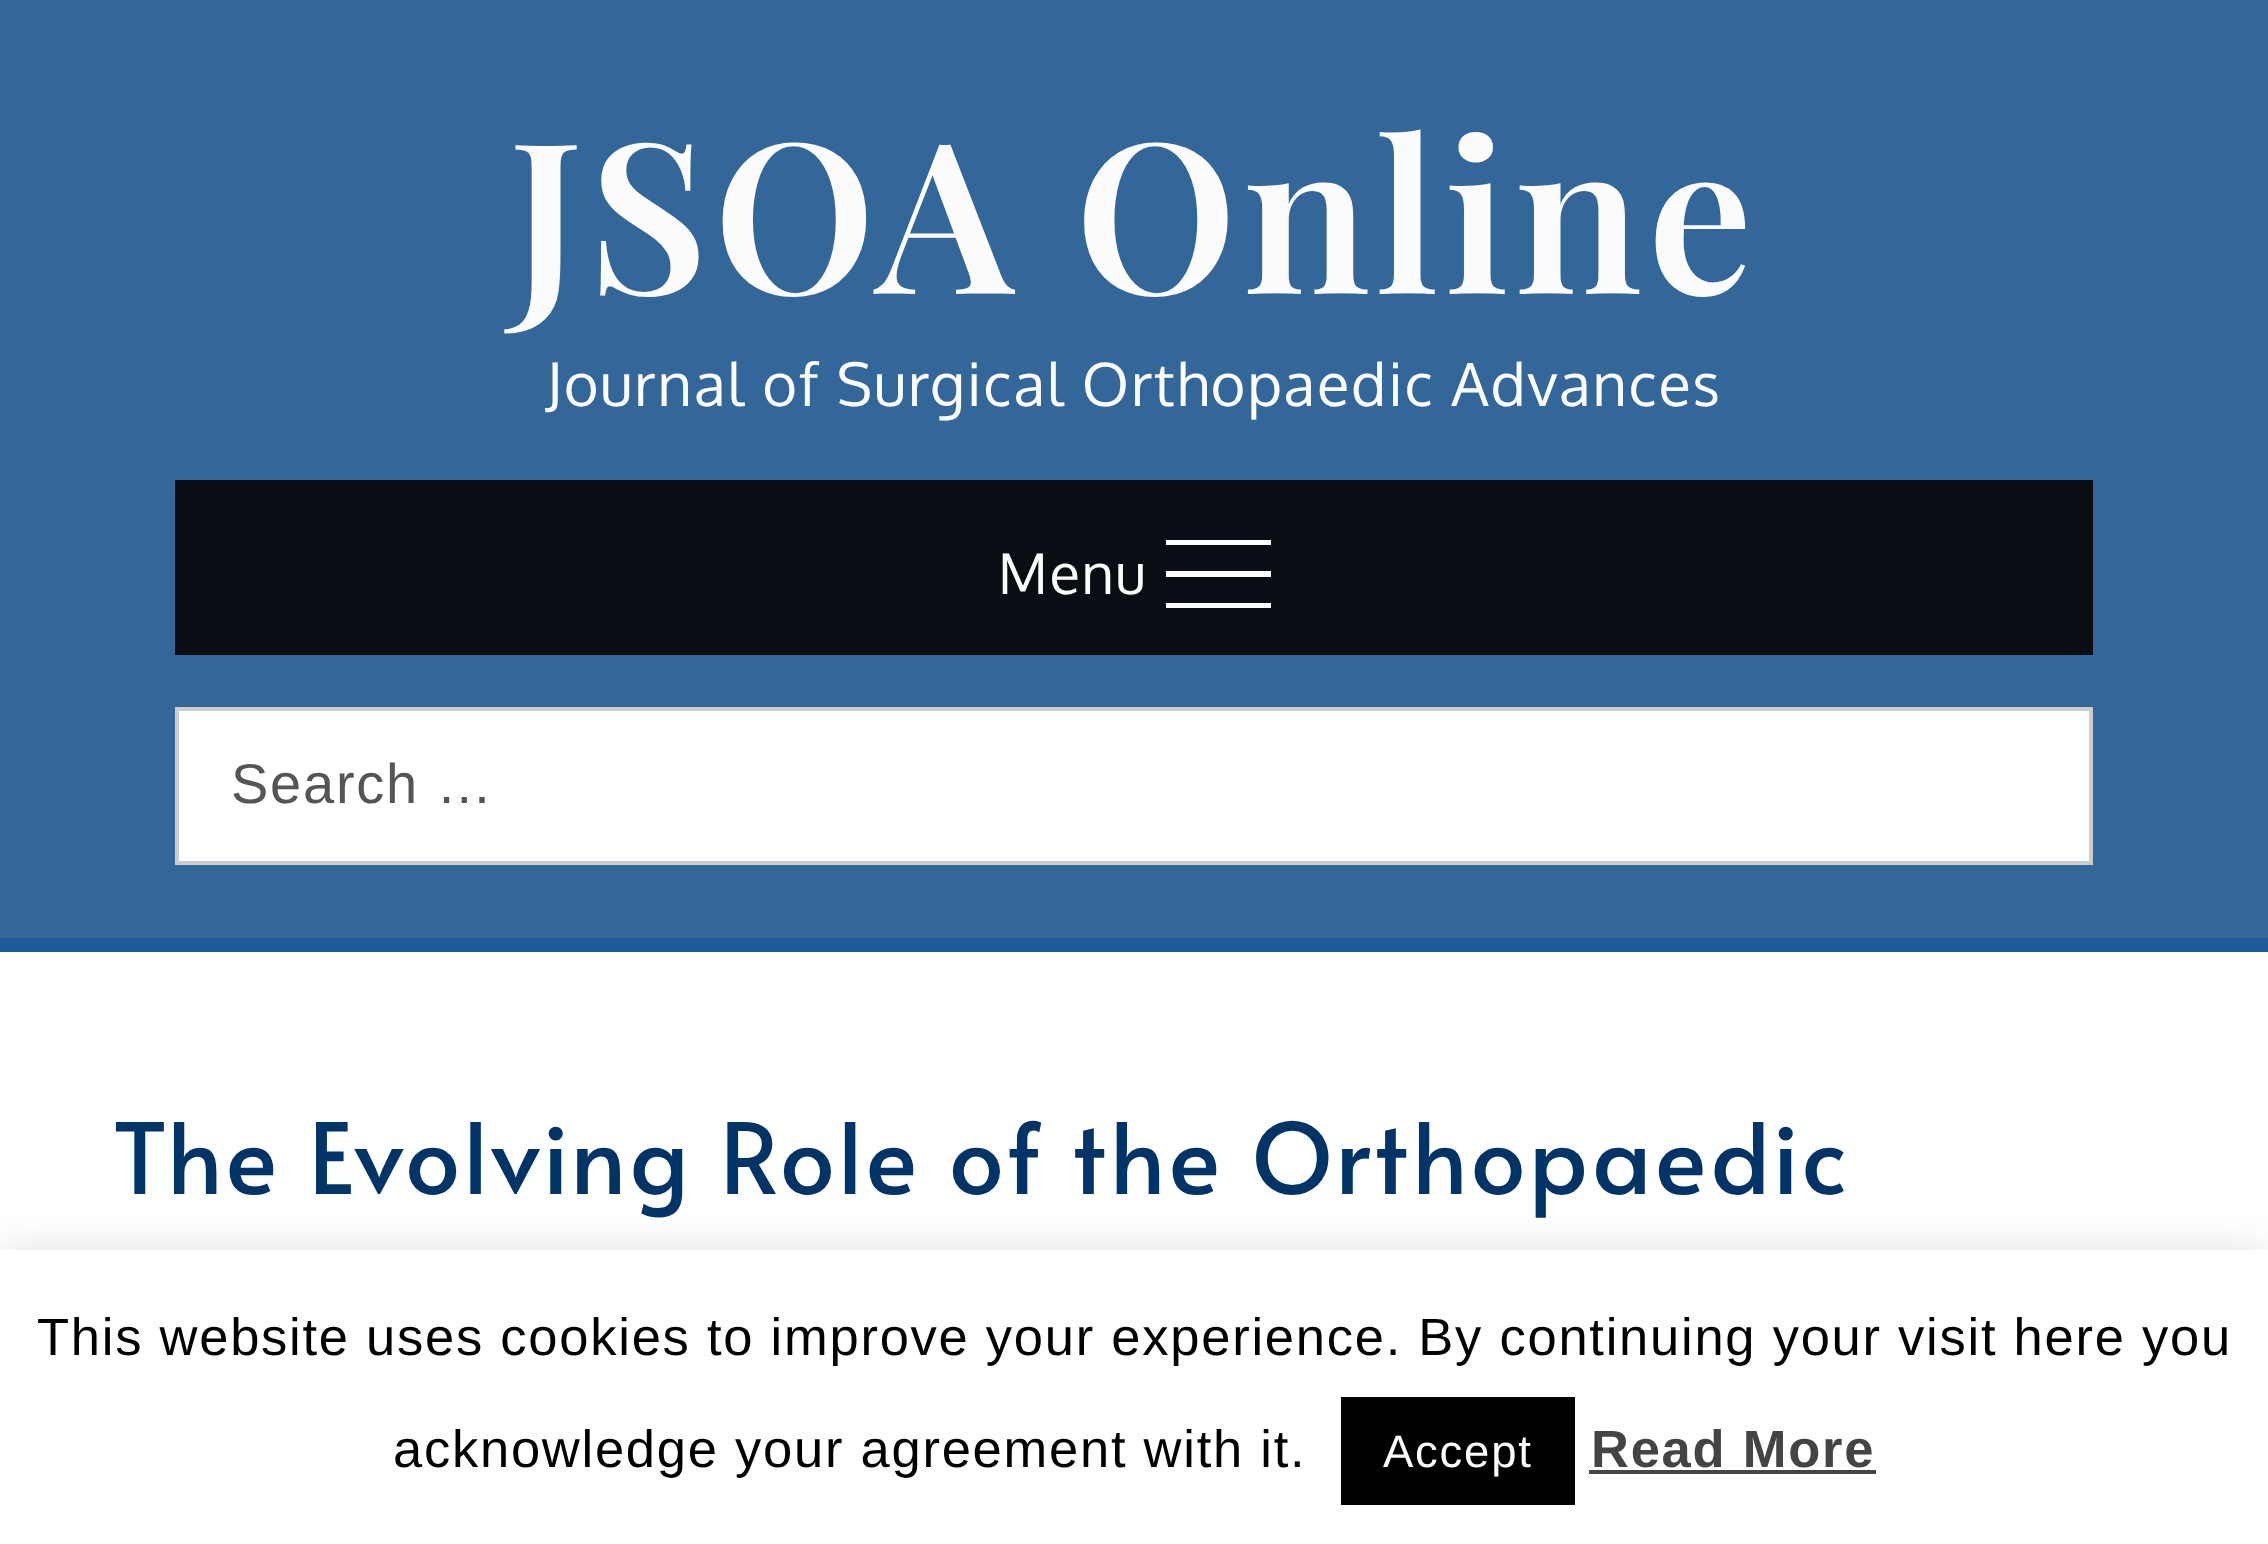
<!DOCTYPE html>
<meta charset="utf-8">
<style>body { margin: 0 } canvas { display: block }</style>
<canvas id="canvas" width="2268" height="1544"></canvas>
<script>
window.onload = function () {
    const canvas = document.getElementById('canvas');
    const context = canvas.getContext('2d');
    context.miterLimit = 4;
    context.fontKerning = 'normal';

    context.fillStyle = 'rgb(255, 255, 255)';
    context.fillRect(0, 0, 2268, 1544);
    context.fillStyle = 'rgb(51, 102, 153)';
    context.fillRect(0, 0, 2268, 938);
    context.fillStyle = 'rgb(10, 14, 20)';
    context.fillRect(175, 480, 1918, 175);
    context.fillStyle = 'rgb(255, 255, 255)';
    context.fillRect(1166, 540, 105, 5);
    context.fillRect(1166, 571, 105, 6);
    context.fillRect(1166, 603, 105, 5);
    context.beginPath();
    context.rect(177, 709, 1914, 154);
    context.fill();
    context.strokeStyle = 'rgb(204, 204, 204)';
    context.lineWidth = 4;
    context.stroke();
    context.fillStyle = 'rgb(30, 91, 153)';
    context.fillRect(0, 938, 2268, 14);
    context.fillStyle = 'rgba(172, 171, 171, 0.3)';
    context.filter = 'blur(17.5px)';
    context.beginPath();
    context.rect(0, 1246, 2268, 298);
    context.fill();
    context.filter = 'none';
    context.fillStyle = 'rgb(255, 255, 255)';
    context.fillRect(0, 1250, 2268, 294);
    context.fillStyle = 'rgb(0, 0, 0)';
    context.fillRect(1341, 1397, 234, 108);
    context.fillStyle = 'rgb(68, 68, 68)';
    context.fillRect(1589, 1470, 287, 4);
    context.letterSpacing = '5.25px';
    context.font = '600 210px Playfair Display';
    context.fillStyle = 'rgb(252, 252, 252)';
    context.fillText('JSOA Online', 509, 294);
    context.letterSpacing = '1.75px';
    context.font = '59.5px Oxygen';
    context.fillText('Journal of Surgical Orthopaedic Advances', 546, 406);
    context.font = '56px Oxygen';
    context.fillText('Menu', 998, 594);
    context.font = '56px Liberation Sans';
    context.fillStyle = 'rgb(85, 85, 85)';
    context.fillText('Search …', 231, 803);
    context.letterSpacing = '3.5px';
    context.font = '98px Alata';
    context.fillStyle = 'rgb(0, 51, 102)';
    context.fillText('The Evolving Role of the Orthopaedic', 113, 1194);
    context.letterSpacing = '1.75px';
    context.font = '52.5px Liberation Sans';
    context.fillStyle = 'rgb(0, 0, 0)';
    context.fillText('This website uses cookies to improve your experience. By continuing your visit here you', 37, 1355);
    context.fillText('acknowledge your agreement with it.', 393, 1467);
    context.font = '45.5px Liberation Sans';
    context.fillStyle = 'rgb(252, 252, 252)';
    context.fillText('Accept', 1383, 1467);
    context.font = 'bold 52.5px Liberation Sans';
    context.fillStyle = 'rgb(68, 68, 68)';
    context.fillText('Read More', 1591, 1467);
};
</script>
